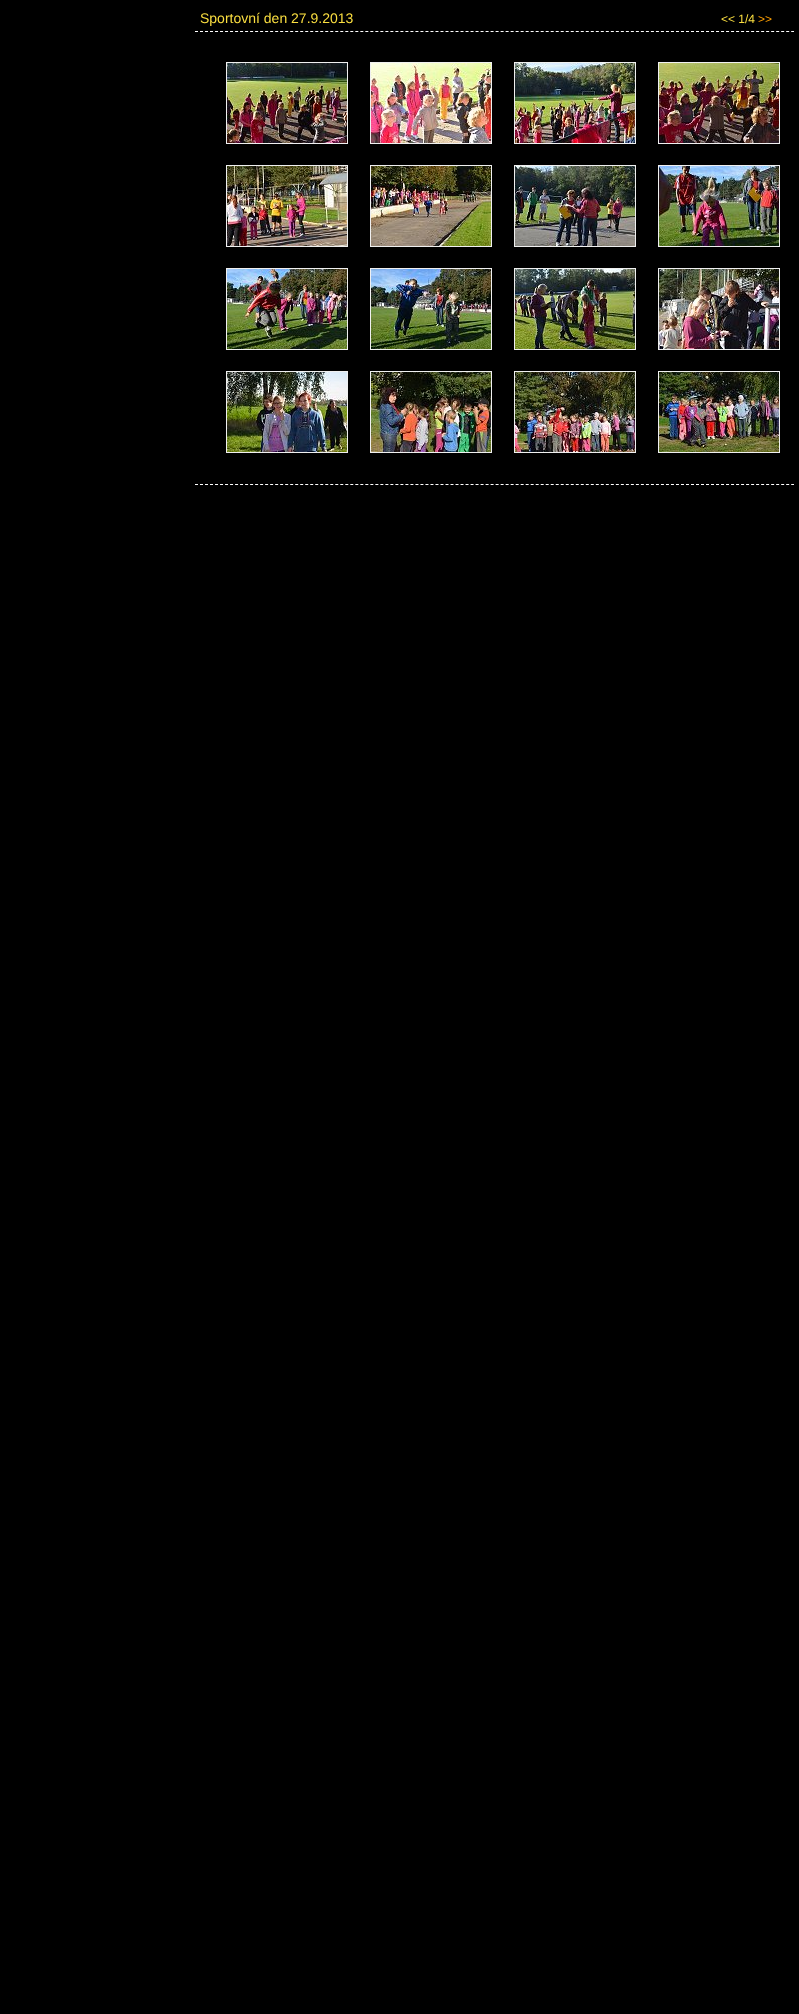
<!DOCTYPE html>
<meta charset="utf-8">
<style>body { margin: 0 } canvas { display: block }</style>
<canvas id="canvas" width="799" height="2014"></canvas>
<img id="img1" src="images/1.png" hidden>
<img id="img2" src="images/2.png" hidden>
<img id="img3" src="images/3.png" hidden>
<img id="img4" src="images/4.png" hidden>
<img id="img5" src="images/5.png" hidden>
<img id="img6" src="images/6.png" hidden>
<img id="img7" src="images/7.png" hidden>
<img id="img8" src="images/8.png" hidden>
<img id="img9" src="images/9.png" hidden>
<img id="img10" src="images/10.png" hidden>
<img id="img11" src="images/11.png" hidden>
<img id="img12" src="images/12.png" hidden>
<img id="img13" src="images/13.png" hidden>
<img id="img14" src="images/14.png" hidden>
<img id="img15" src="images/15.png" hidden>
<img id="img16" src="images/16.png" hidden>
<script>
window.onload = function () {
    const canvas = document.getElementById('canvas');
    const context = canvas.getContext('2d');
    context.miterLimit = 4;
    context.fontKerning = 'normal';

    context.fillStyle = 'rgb(0, 0, 0)';
    context.fillRect(0, 0, 799, 2014);
    context.beginPath();
    context.moveTo(195, 31.5);
    context.lineTo(794, 31.5);
    context.strokeStyle = 'rgb(255, 255, 255)';
    context.setLineDash([3, 2.01]);
    context.stroke();
    context.strokeStyle = 'rgb(240, 240, 240)';
    context.setLineDash([]);
    context.strokeRect(226.5, 62.5, 121, 81);
    context.drawImage(document.getElementById('img1'), 227, 63, 120, 80);
    context.strokeRect(370.5, 62.5, 121, 81);
    context.drawImage(document.getElementById('img2'), 371, 63, 120, 80);
    context.strokeRect(514.5, 62.5, 121, 81);
    context.drawImage(document.getElementById('img3'), 515, 63, 120, 80);
    context.strokeRect(658.5, 62.5, 121, 81);
    context.drawImage(document.getElementById('img4'), 659, 63, 120, 80);
    context.strokeRect(226.5, 165.5, 121, 81);
    context.drawImage(document.getElementById('img5'), 227, 166, 120, 80);
    context.strokeRect(370.5, 165.5, 121, 81);
    context.drawImage(document.getElementById('img6'), 371, 166, 120, 80);
    context.strokeRect(514.5, 165.5, 121, 81);
    context.drawImage(document.getElementById('img7'), 515, 166, 120, 80);
    context.strokeRect(658.5, 165.5, 121, 81);
    context.drawImage(document.getElementById('img8'), 659, 166, 120, 80);
    context.strokeRect(226.5, 268.5, 121, 81);
    context.drawImage(document.getElementById('img9'), 227, 269, 120, 80);
    context.strokeRect(370.5, 268.5, 121, 81);
    context.drawImage(document.getElementById('img10'), 371, 269, 120, 80);
    context.strokeRect(514.5, 268.5, 121, 81);
    context.drawImage(document.getElementById('img11'), 515, 269, 120, 80);
    context.strokeRect(658.5, 268.5, 121, 81);
    context.drawImage(document.getElementById('img12'), 659, 269, 120, 80);
    context.strokeRect(226.5, 371.5, 121, 81);
    context.drawImage(document.getElementById('img13'), 227, 372, 120, 80);
    context.strokeRect(370.5, 371.5, 121, 81);
    context.drawImage(document.getElementById('img14'), 371, 372, 120, 80);
    context.strokeRect(514.5, 371.5, 121, 81);
    context.drawImage(document.getElementById('img15'), 515, 372, 120, 80);
    context.strokeRect(658.5, 371.5, 121, 81);
    context.drawImage(document.getElementById('img16'), 659, 372, 120, 80);
    context.beginPath();
    context.moveTo(195, 484.5);
    context.lineTo(794, 484.5);
    context.strokeStyle = 'rgb(255, 255, 255)';
    context.setLineDash([3, 2.01]);
    context.stroke();
    context.font = '14px Liberation Sans';
    context.fillStyle = 'rgb(251, 223, 64)';
    context.fillText('Sportovní den 27.9.2013', 200, 23);
    context.font = '12px Liberation Sans';
    context.fillText('<< 1/4', 721, 23);
    context.fillStyle = 'rgb(255, 160, 0)';
    context.fillText('>>', 758, 23);
};
</script>
